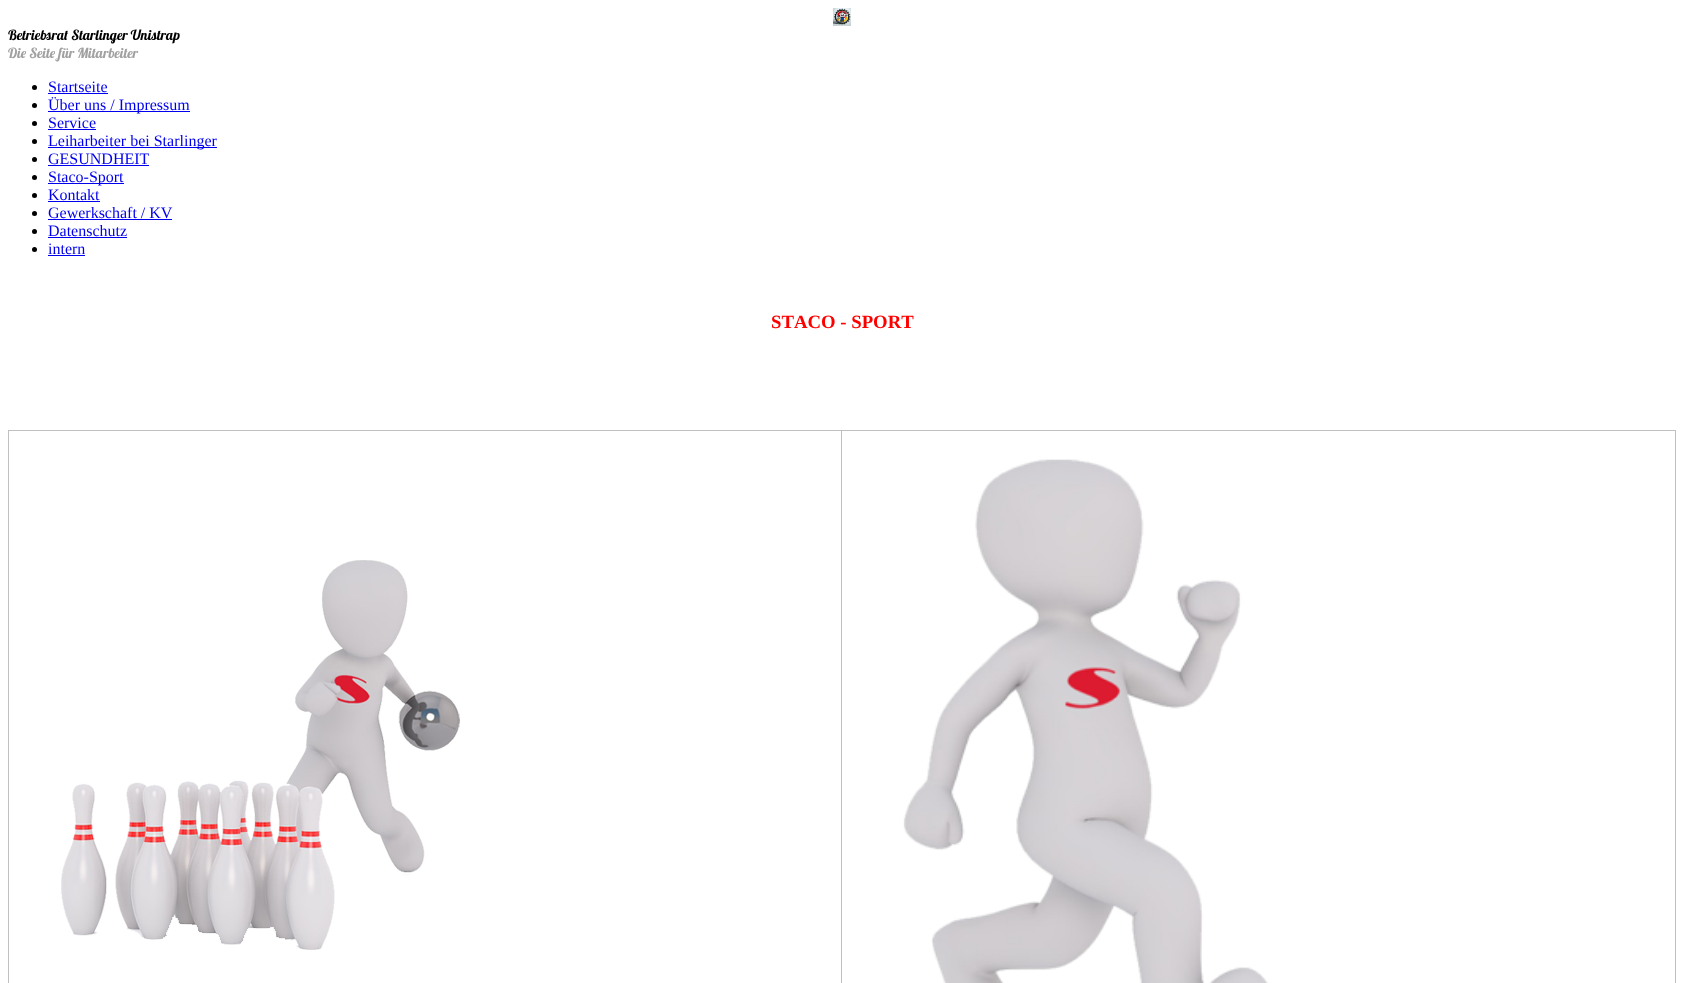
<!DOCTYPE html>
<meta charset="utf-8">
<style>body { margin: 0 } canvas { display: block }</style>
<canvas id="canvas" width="1684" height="983"></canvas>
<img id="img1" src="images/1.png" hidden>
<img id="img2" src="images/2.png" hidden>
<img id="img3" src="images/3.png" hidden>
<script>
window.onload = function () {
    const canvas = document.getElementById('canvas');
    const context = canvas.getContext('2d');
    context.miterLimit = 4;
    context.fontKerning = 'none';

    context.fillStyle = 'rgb(255, 255, 255)';
    context.fillRect(0, 0, 1684, 983);
    context.drawImage(document.getElementById('img1'), 833, 8, 18, 18);
    context.fillStyle = 'rgb(0, 0, 0)';
    context.beginPath();
    context.arc(34.5, 87.5, 2.5, 0, 2 * Math.PI);
    context.fill();
    context.fillStyle = 'rgb(0, 0, 238)';
    context.fillRect(48, 93, 60, 1);
    context.fillStyle = 'rgb(0, 0, 0)';
    context.beginPath();
    context.arc(34.5, 105.5, 2.5, 0, 2 * Math.PI);
    context.fill();
    context.fillStyle = 'rgb(0, 0, 238)';
    context.fillRect(48, 111, 142, 1);
    context.fillStyle = 'rgb(0, 0, 0)';
    context.beginPath();
    context.arc(34.5, 123.5, 2.5, 0, 2 * Math.PI);
    context.fill();
    context.fillStyle = 'rgb(0, 0, 238)';
    context.fillRect(48, 129, 48, 1);
    context.fillStyle = 'rgb(0, 0, 0)';
    context.beginPath();
    context.arc(34.5, 141.5, 2.5, 0, 2 * Math.PI);
    context.fill();
    context.fillStyle = 'rgb(0, 0, 238)';
    context.fillRect(48, 147, 169, 1);
    context.fillStyle = 'rgb(0, 0, 0)';
    context.beginPath();
    context.arc(34.5, 159.5, 2.5, 0, 2 * Math.PI);
    context.fill();
    context.fillStyle = 'rgb(0, 0, 238)';
    context.fillRect(48, 165, 101, 1);
    context.fillStyle = 'rgb(0, 0, 0)';
    context.beginPath();
    context.arc(34.5, 177.5, 2.5, 0, 2 * Math.PI);
    context.fill();
    context.fillStyle = 'rgb(0, 0, 238)';
    context.fillRect(48, 183, 76, 1);
    context.fillStyle = 'rgb(0, 0, 0)';
    context.beginPath();
    context.arc(34.5, 195.5, 2.5, 0, 2 * Math.PI);
    context.fill();
    context.fillStyle = 'rgb(0, 0, 238)';
    context.fillRect(48, 201, 52, 1);
    context.fillStyle = 'rgb(0, 0, 0)';
    context.beginPath();
    context.arc(34.5, 213.5, 2.5, 0, 2 * Math.PI);
    context.fill();
    context.fillStyle = 'rgb(0, 0, 238)';
    context.fillRect(48, 219, 124, 1);
    context.fillStyle = 'rgb(0, 0, 0)';
    context.beginPath();
    context.arc(34.5, 231.5, 2.5, 0, 2 * Math.PI);
    context.fill();
    context.fillStyle = 'rgb(0, 0, 238)';
    context.fillRect(48, 237, 79, 1);
    context.fillStyle = 'rgb(0, 0, 0)';
    context.beginPath();
    context.arc(34.5, 249.5, 2.5, 0, 2 * Math.PI);
    context.fill();
    context.fillStyle = 'rgb(0, 0, 238)';
    context.fillRect(48, 255, 37, 1);
    context.strokeStyle = 'rgb(192, 192, 192)';
    context.strokeRect(8.5, 430.5, 1667, 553);
    context.fillStyle = 'rgb(192, 192, 192)';
    context.fillRect(841, 431, 1, 552);
    context.drawImage(document.getElementById('img2'), 61, 560, 399, 390);
    context.drawImage(document.getElementById('img3'), 903, 459, 366, 524);
    context.font = '14px Lobster';
    context.fillStyle = 'rgb(0, 0, 0)';
    context.fillText('Betriebsrat Starlinger Unistrap', 8, 40);
    context.fillStyle = 'rgb(161, 161, 161)';
    context.fillText('Die Seite für Mitarbeiter', 8, 58);
    context.font = '16px Liberation Serif';
    context.fillStyle = 'rgb(0, 0, 238)';
    context.fillText('Startseite', 48, 92);
    context.fillText('Über uns / Impressum', 48, 110);
    context.fillText('Service', 48, 128);
    context.fillText('Leiharbeiter bei Starlinger', 48, 146);
    context.fillText('GESUNDHEIT', 48, 164);
    context.fillText('Staco-Sport', 48, 182);
    context.fillText('Kontakt', 48, 200);
    context.fillText('Gewerkschaft / KV', 48, 218);
    context.fillText('Datenschutz', 48, 236);
    context.fillText('intern', 48, 254);
    context.font = 'bold 18.75px Liberation Serif';
    context.fillStyle = 'rgb(255, 0, 0)';
    context.fillText('STACO - SPORT', 771, 328);
};
</script>
